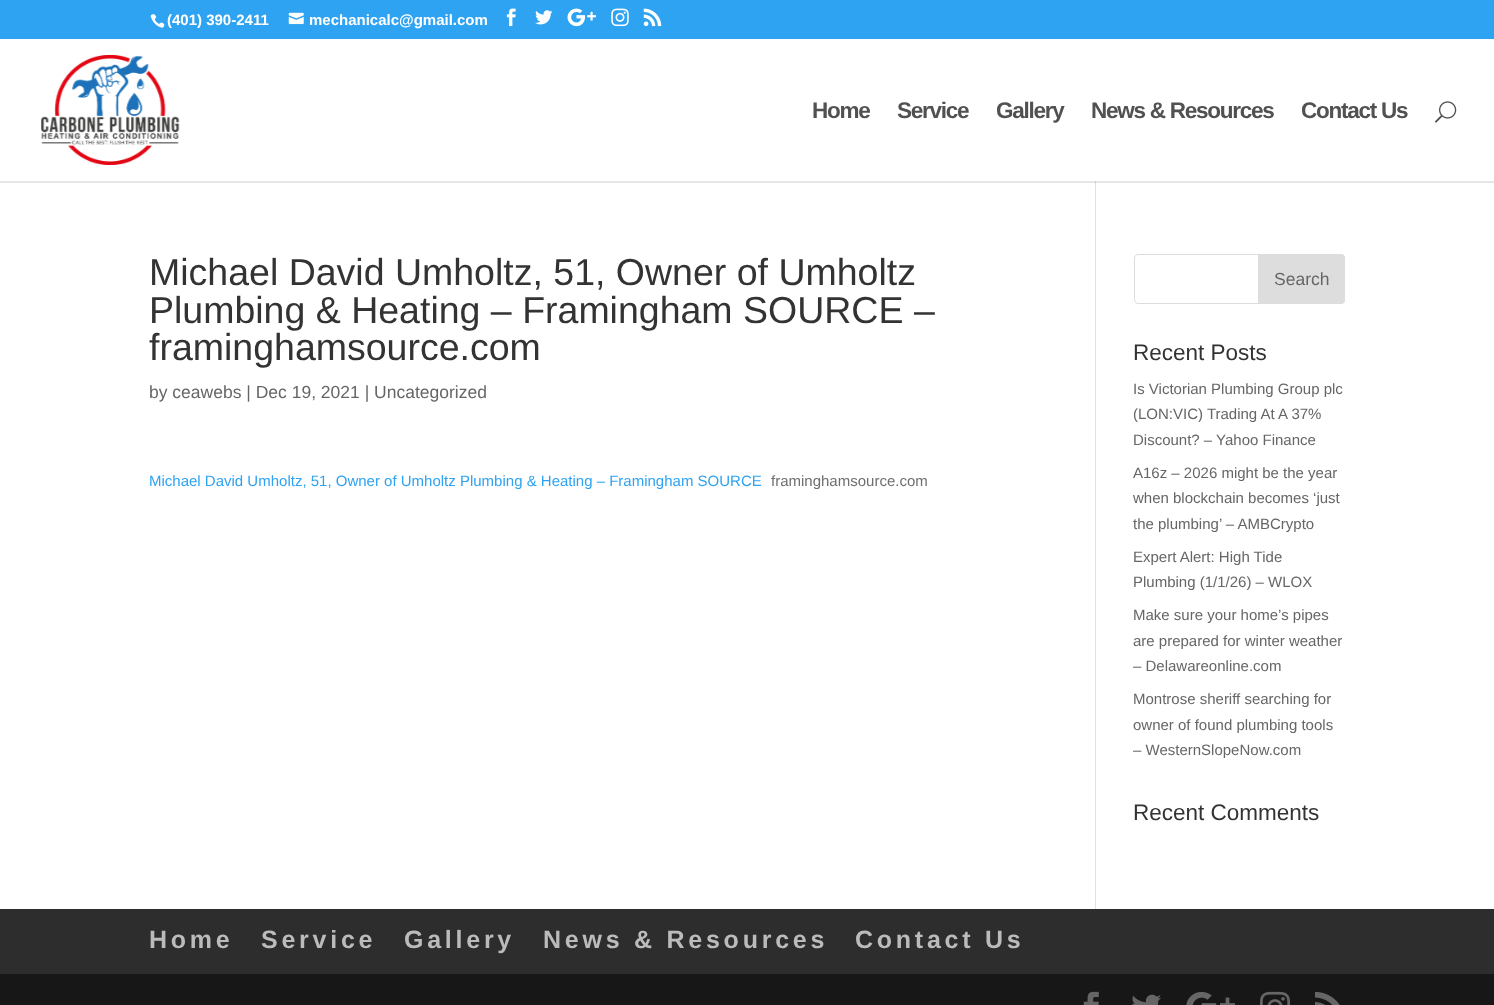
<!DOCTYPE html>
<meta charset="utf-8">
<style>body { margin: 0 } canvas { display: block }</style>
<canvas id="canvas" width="1494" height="1005"></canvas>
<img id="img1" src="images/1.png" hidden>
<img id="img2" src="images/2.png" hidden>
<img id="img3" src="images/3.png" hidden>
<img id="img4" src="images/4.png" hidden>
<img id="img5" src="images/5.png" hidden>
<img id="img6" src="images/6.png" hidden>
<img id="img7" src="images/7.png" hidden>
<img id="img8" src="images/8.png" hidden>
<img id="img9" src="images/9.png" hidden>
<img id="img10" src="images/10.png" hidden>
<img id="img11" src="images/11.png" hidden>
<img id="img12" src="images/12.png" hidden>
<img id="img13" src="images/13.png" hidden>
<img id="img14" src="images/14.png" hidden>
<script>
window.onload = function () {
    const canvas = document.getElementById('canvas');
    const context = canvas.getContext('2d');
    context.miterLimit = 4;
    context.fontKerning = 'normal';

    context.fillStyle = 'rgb(255, 255, 255)';
    context.fillRect(0, 0, 1494, 1005);
    context.fillStyle = 'rgb(230, 230, 230)';
    context.fillRect(0, 181, 1494, 2);
    context.fillStyle = 'rgb(46, 163, 242)';
    context.fillRect(0, 0, 1494, 39);
    context.drawImage(document.getElementById('img1'), 150, 14, 15, 14);
    context.drawImage(document.getElementById('img2'), 288, 12, 16, 13);
    context.drawImage(document.getElementById('img3'), 506, 8, 10, 19);
    context.drawImage(document.getElementById('img4'), 535, 10, 18, 15);
    context.drawImage(document.getElementById('img5'), 567, 8, 29, 19);
    context.drawImage(document.getElementById('img6'), 611, 8, 18, 19);
    context.drawImage(document.getElementById('img7'), 643, 8, 19, 19);
    context.drawImage(document.getElementById('img8'), 41, 55, 139, 110);
    context.drawImage(document.getElementById('img9'), 1435, 101, 22, 22);
    context.fillStyle = 'rgb(226, 226, 226)';
    context.fillRect(1095, 181, 1, 728);
    context.fillStyle = 'rgb(203, 203, 203)';
    context.fillRect(1095, 181, 1, 2);
    context.beginPath();
    context.roundRect(1134.5, 254.5, 210, 49, 3.5);
    context.strokeStyle = 'rgb(221, 221, 221)';
    context.stroke();
    context.fillStyle = 'rgb(221, 221, 221)';
    context.beginPath();
    context.roundRect(1258.5, 254.5, 86, 49, [0, 3.5, 3.5, 0]);
    context.fill();
    context.stroke();
    context.fillStyle = 'rgb(45, 45, 45)';
    context.fillRect(0, 909, 1494, 65);
    context.fillStyle = 'rgb(23, 23, 23)';
    context.fillRect(0, 974, 1494, 31);
    context.drawImage(document.getElementById('img10'), 1083, 991, 16, 14);
    context.drawImage(document.getElementById('img11'), 1132, 994, 29, 11);
    context.drawImage(document.getElementById('img12'), 1186, 991, 49, 14);
    context.drawImage(document.getElementById('img13'), 1260, 991, 30, 14);
    context.drawImage(document.getElementById('img14'), 1315, 991, 25, 14);
    context.font = 'bold 15px Liberation Sans';
    context.fillStyle = 'rgb(255, 255, 255)';
    context.fillText('(401) 390-2411', 167, 25);
    context.fillText('mechanicalc@gmail.com', 309, 25);
    context.letterSpacing = '-1.25px';
    context.font = 'bold 22.5px Liberation Sans';
    context.fillStyle = 'rgb(81, 81, 81)';
    context.fillText('Home', 812, 118);
    context.fillText('Service', 897, 118);
    context.fillText('Gallery', 996, 118);
    context.fillText('News & Resources', 1091, 118);
    context.fillText('Contact Us', 1301, 118);
    context.letterSpacing = '0px';
    context.font = '37.5px Liberation Sans';
    context.fillStyle = 'rgb(51, 51, 51)';
    context.fillText('Michael David Umholtz, 51, Owner of Umholtz', 149, 285);
    context.fillText('Plumbing & Heating – Framingham SOURCE –', 149, 323);
    context.fillText('framinghamsource.com', 149, 360);
    context.font = '17.5px Liberation Sans';
    context.fillStyle = 'rgb(102, 102, 102)';
    context.fillText('by ceawebs | Dec 19, 2021 | Uncategorized', 149, 398);
    context.font = '15px Liberation Sans';
    context.fillStyle = 'rgb(46, 163, 242)';
    context.fillText('Michael David Umholtz, 51, Owner of Umholtz Plumbing & Heating – Framingham SOURCE', 149, 486);
    context.fillStyle = 'rgb(111, 111, 111)';
    context.fillText('framinghamsource.com', 771, 486);
    context.font = '17.5px Liberation Sans';
    context.fillStyle = 'rgb(102, 102, 102)';
    context.fillText('Search', 1274, 285);
    context.font = '22.5px Liberation Sans';
    context.fillStyle = 'rgb(51, 51, 51)';
    context.fillText('Recent Posts', 1133, 360);
    context.font = '15px Liberation Sans';
    context.fillStyle = 'rgb(102, 102, 102)';
    context.fillText('Is Victorian Plumbing Group plc', 1133, 394);
    context.fillText('(LON:VIC) Trading At A 37%', 1133, 419);
    context.fillText('Discount? – Yahoo Finance', 1133, 445);
    context.fillText('A16z – 2026 might be the year', 1133, 478);
    context.fillText('when blockchain becomes ‘just', 1133, 503);
    context.fillText('the plumbing’ – AMBCrypto', 1133, 529);
    context.fillText('Expert Alert: High Tide', 1133, 562);
    context.fillText('Plumbing (1/1/26) – WLOX', 1133, 587);
    context.fillText('Make sure your home’s pipes', 1133, 620);
    context.fillText('are prepared for winter weather', 1133, 646);
    context.fillText('– Delawareonline.com', 1133, 671);
    context.fillText('Montrose sheriff searching for', 1133, 704);
    context.fillText('owner of found plumbing tools', 1133, 730);
    context.fillText('– WesternSlopeNow.com', 1133, 755);
    context.font = '22.5px Liberation Sans';
    context.fillStyle = 'rgb(51, 51, 51)';
    context.fillText('Recent Comments', 1133, 820);
    context.letterSpacing = '3.75px';
    context.font = 'bold 25px Liberation Sans';
    context.fillStyle = 'rgb(187, 187, 187)';
    context.fillText('Home', 149, 948);
    context.fillText('Service', 261, 948);
    context.fillText('Gallery', 404, 948);
    context.fillText('News & Resources', 543, 948);
    context.fillText('Contact Us', 855, 948);
};
</script>
